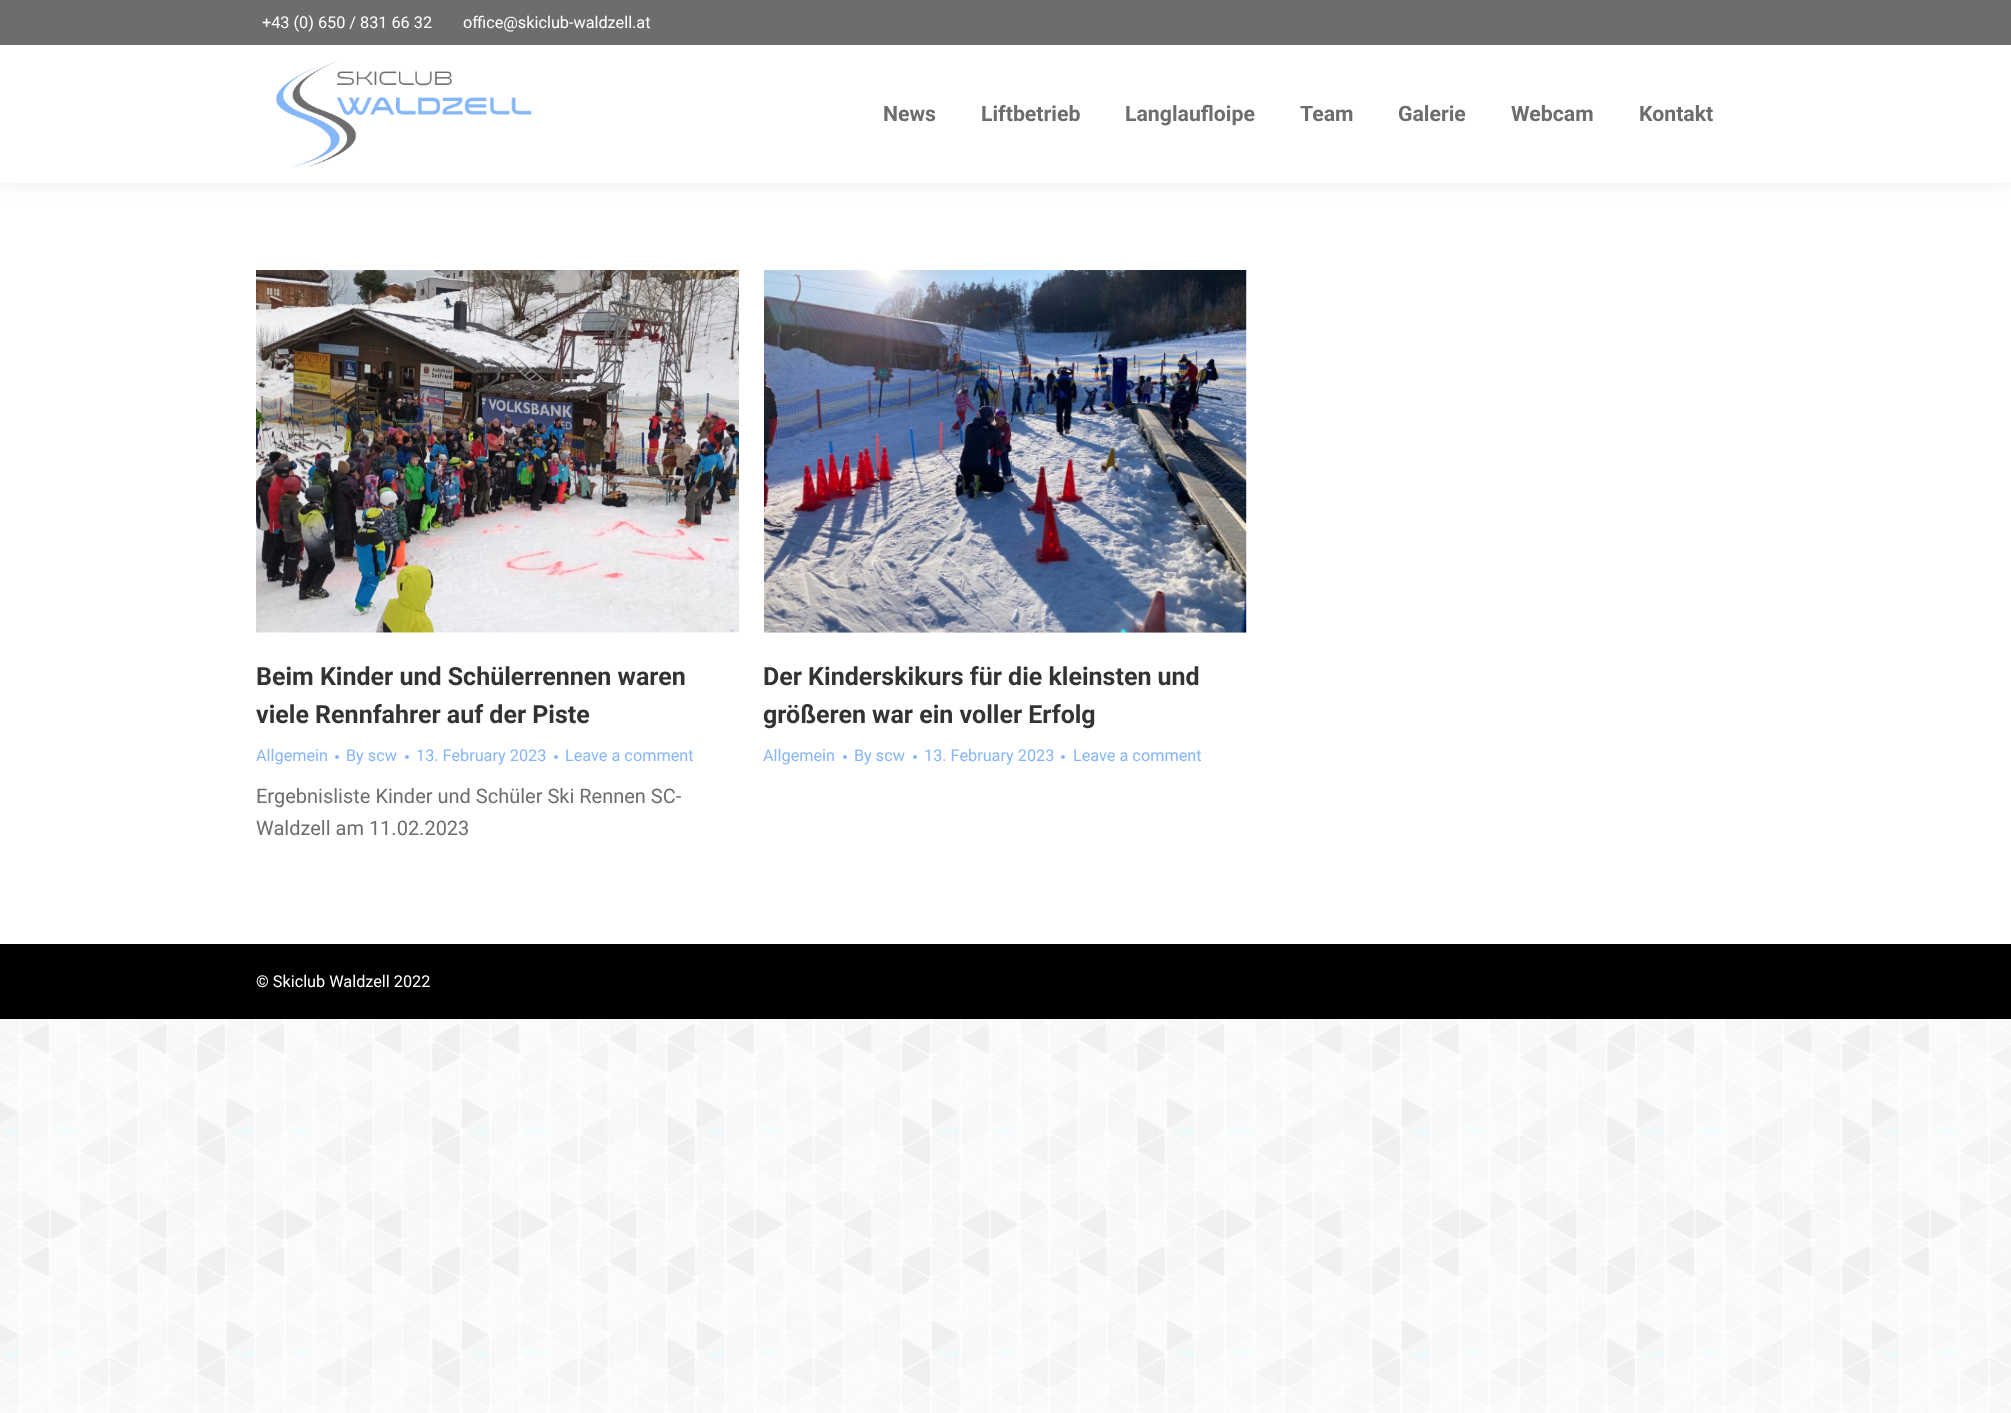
<!DOCTYPE html>
<meta charset="utf-8">
<style>body { margin: 0 } canvas { display: block }</style>
<canvas id="canvas" width="2011" height="1413"></canvas>
<img id="img1" src="images/1.png" hidden>
<img id="img2" src="images/2.png" hidden>
<img id="img3" src="images/3.png" hidden>
<img id="img4" src="images/4.png" hidden>
<script>
window.onload = function () {
    const canvas = document.getElementById('canvas');
    const context = canvas.getContext('2d');
    context.miterLimit = 4;
    context.fontKerning = 'normal';

    context.fillStyle = 'rgb(255, 255, 255)';
    context.fillRect(0, 0, 2011, 1413);
    context.drawImage(document.getElementById('img1'), 0, 1019, 2011, 394);
    context.fillStyle = 'rgba(0, 0, 0, 0.07)';
    context.filter = 'blur(9.5px)';
    context.beginPath();
    context.rect(-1, -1, 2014, 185);
    context.fill();
    context.filter = 'none';
    context.fillStyle = 'rgb(255, 255, 255)';
    context.fillRect(0, 45, 2011, 138);
    context.fillStyle = 'rgb(109, 109, 109)';
    context.fillRect(0, 0, 2011, 45);
    context.drawImage(document.getElementById('img2'), 276, 61, 256, 106);
    context.drawImage(document.getElementById('img3'), 256, 270, 483, 363);
    context.fillStyle = 'rgb(133, 182, 250)';
    context.beginPath();
    context.arc(337, 757, 2, 0, 2 * Math.PI);
    context.fill();
    context.beginPath();
    context.arc(407, 757, 2, 0, 2 * Math.PI);
    context.fill();
    context.beginPath();
    context.arc(556, 757, 2, 0, 2 * Math.PI);
    context.fill();
    context.drawImage(document.getElementById('img4'), 764, 270, 483, 363);
    context.beginPath();
    context.arc(845, 757, 2, 0, 2 * Math.PI);
    context.fill();
    context.beginPath();
    context.arc(915, 757, 2, 0, 2 * Math.PI);
    context.fill();
    context.beginPath();
    context.arc(1063, 757, 2, 0, 2 * Math.PI);
    context.fill();
    context.fillStyle = 'rgb(0, 0, 0)';
    context.fillRect(0, 944, 2011, 75);
    context.font = '16.25px Roboto';
    context.fillStyle = 'rgb(255, 255, 255)';
    context.fillText('+43 (0) 650 / 831 66 32', 262, 28);
    context.fillText('office@skiclub-waldzell.at', 463, 28);
    context.font = 'bold 21.25px Roboto';
    context.fillStyle = 'rgb(109, 109, 109)';
    context.fillText('News', 883, 121);
    context.fillText('Liftbetrieb', 981, 121);
    context.fillText('Langlaufloipe', 1125, 121);
    context.fillText('Team', 1300, 121);
    context.fillText('Galerie', 1398, 121);
    context.fillText('Webcam', 1511, 121);
    context.fillText('Kontakt', 1639, 121);
    context.font = 'bold 25px Roboto';
    context.fillStyle = 'rgb(51, 51, 51)';
    context.fillText('Beim Kinder und Schülerrennen waren', 256, 685);
    context.fillText('viele Rennfahrer auf der Piste', 256, 723);
    context.font = '16.25px Roboto';
    context.fillStyle = 'rgb(133, 182, 250)';
    context.fillText('Allgemein', 256, 761);
    context.fillText('By scw', 346, 761);
    context.fillText('13. February 2023', 416, 761);
    context.fillText('Leave a comment', 565, 761);
    context.font = '20px Roboto';
    context.fillStyle = 'rgb(109, 109, 109)';
    context.fillText('Ergebnisliste Kinder und Schüler Ski Rennen SC-', 256, 803);
    context.fillText('Waldzell am 11.02.2023', 256, 835);
    context.font = 'bold 25px Roboto';
    context.fillStyle = 'rgb(51, 51, 51)';
    context.fillText('Der Kinderskikurs für die kleinsten und', 763, 685);
    context.fillText('größeren war ein voller Erfolg', 763, 723);
    context.font = '16.25px Roboto';
    context.fillStyle = 'rgb(133, 182, 250)';
    context.fillText('Allgemein', 763, 761);
    context.fillText('By scw', 854, 761);
    context.fillText('13. February 2023', 924, 761);
    context.fillText('Leave a comment', 1073, 761);
    context.fillStyle = 'rgb(255, 255, 255)';
    context.fillText('© Skiclub Waldzell 2022', 256, 987);
};
</script>
